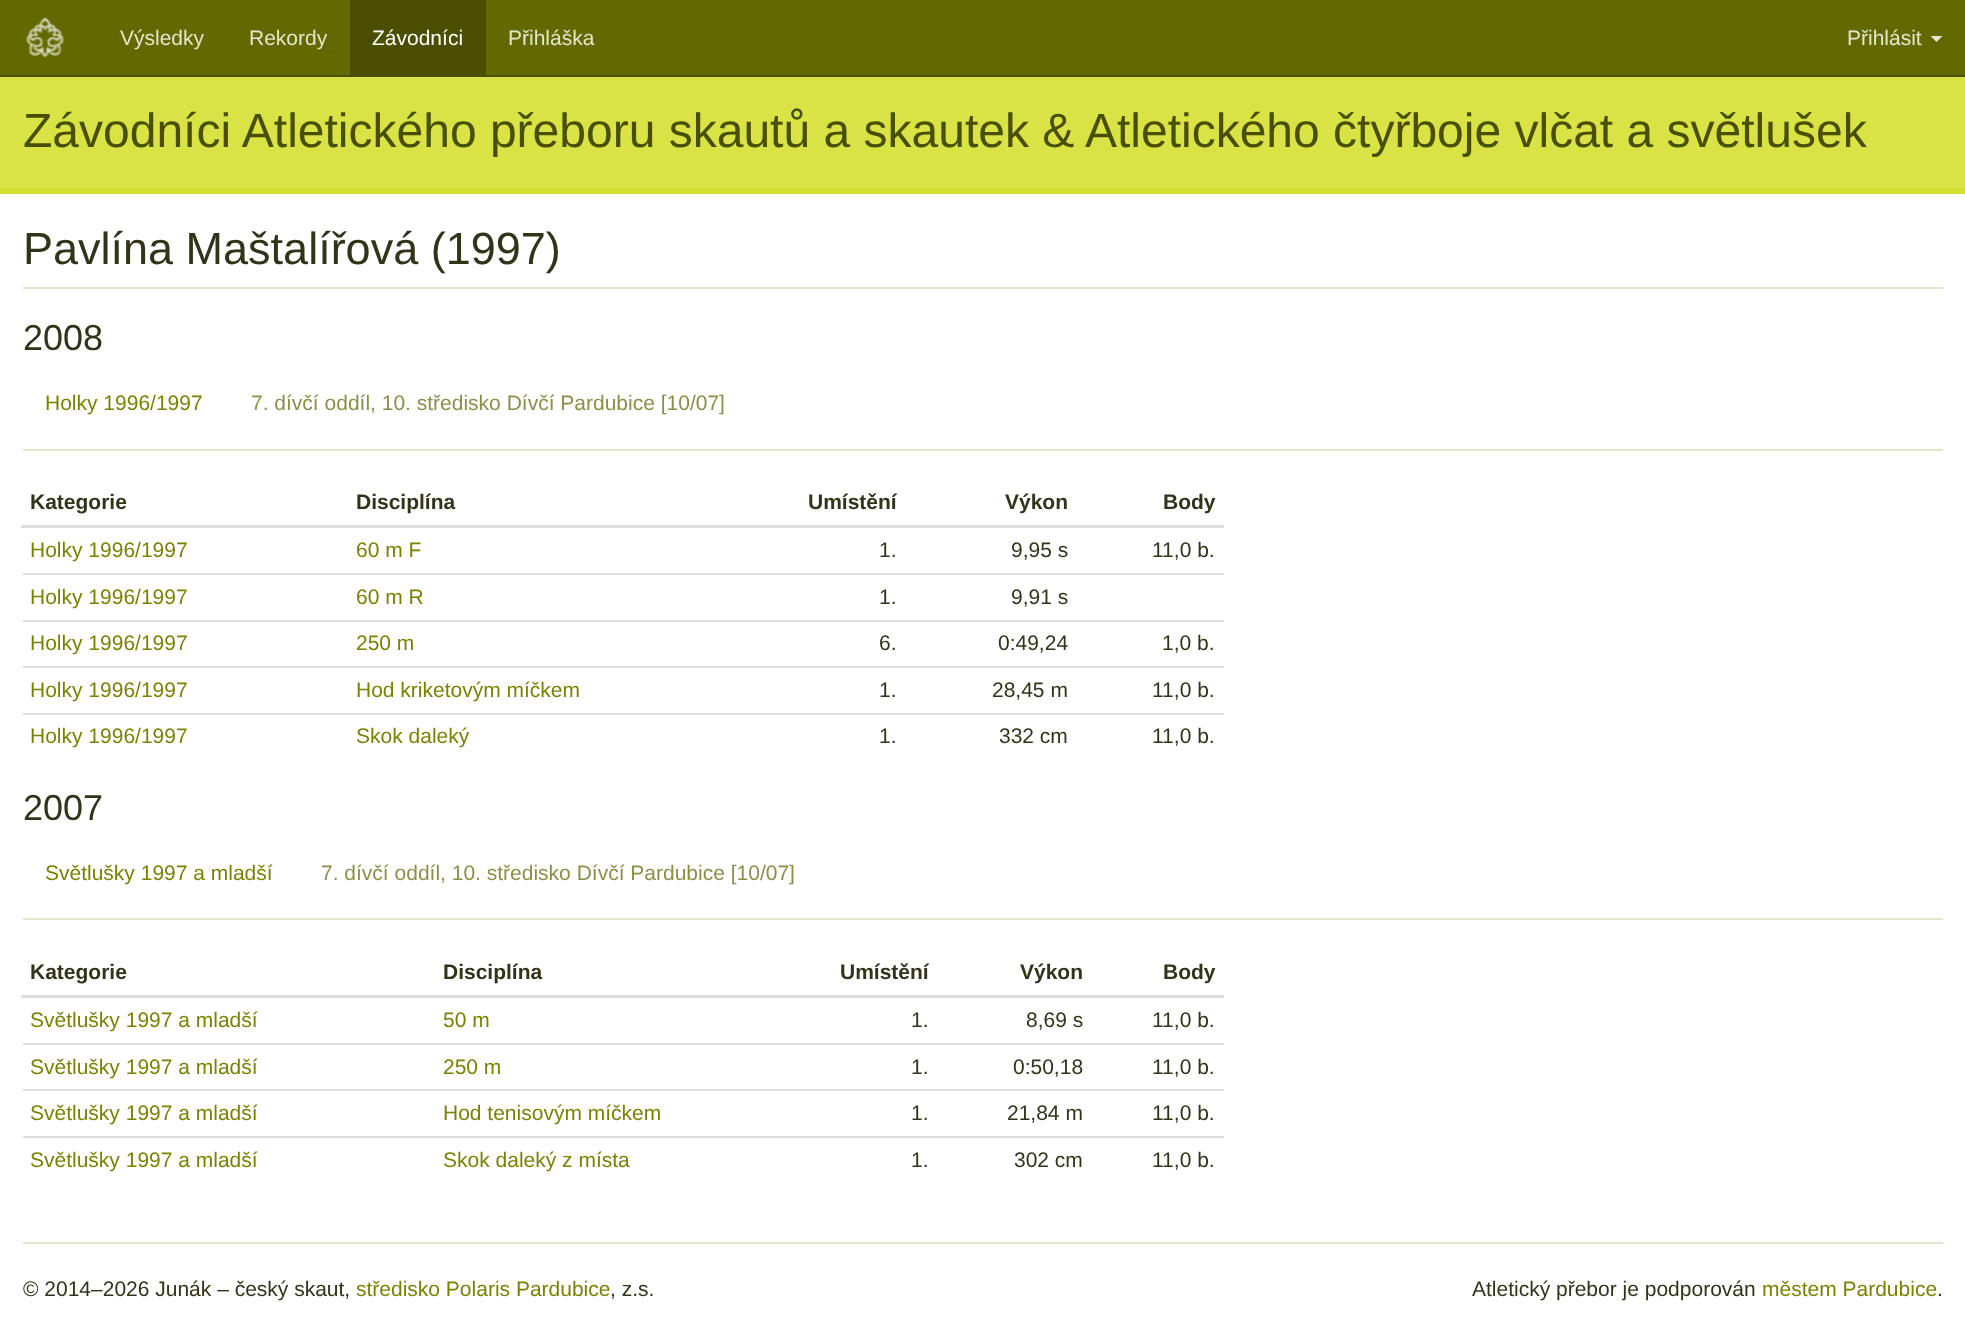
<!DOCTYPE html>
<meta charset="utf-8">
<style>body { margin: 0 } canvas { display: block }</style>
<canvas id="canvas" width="1965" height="1342"></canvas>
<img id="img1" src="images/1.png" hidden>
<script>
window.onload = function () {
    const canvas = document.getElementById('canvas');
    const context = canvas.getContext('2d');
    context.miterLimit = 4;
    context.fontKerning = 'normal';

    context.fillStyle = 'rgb(255, 255, 255)';
    context.fillRect(0, 0, 1965, 1342);
    context.fillStyle = 'rgb(98, 105, 0)';
    context.fillRect(0, 0, 1965, 75);
    context.fillStyle = 'rgb(74, 79, 0)';
    context.fillRect(0, 75, 1965, 2);
    context.drawImage(document.getElementById('img1'), 25, 17, 40, 41);
    context.fillRect(350, 0, 136, 75);
    context.fillStyle = 'rgb(228, 230, 204)';
    context.beginPath();
    context.moveTo(1930.5, 36);
    context.lineTo(1942.5, 36);
    context.lineTo(1936.5, 42);
    context.closePath();
    context.fill();
    context.fillStyle = 'rgb(217, 227, 69)';
    context.fillRect(0, 77, 1965, 111);
    context.fillStyle = 'rgb(212, 224, 47)';
    context.fillRect(0, 188, 1965, 6);
    context.fillStyle = 'rgb(228, 230, 204)';
    context.fillRect(23, 287, 1920, 2);
    context.fillRect(23, 449, 1920, 2);
    context.fillStyle = 'rgb(221, 221, 221)';
    context.fillRect(21, 525, 1203, 3);
    context.fillRect(23, 573, 1201, 2);
    context.fillRect(23, 620, 1201, 2);
    context.fillRect(23, 666, 1201, 2);
    context.fillRect(23, 713, 1201, 2);
    context.fillStyle = 'rgb(228, 230, 204)';
    context.fillRect(23, 918, 1920, 2);
    context.fillStyle = 'rgb(221, 221, 221)';
    context.fillRect(21, 995, 1203, 3);
    context.fillRect(23, 1043, 1201, 2);
    context.fillRect(23, 1089, 1201, 2);
    context.fillRect(23, 1136, 1201, 2);
    context.fillStyle = 'rgb(228, 230, 204)';
    context.fillRect(23, 1242, 1920, 2);
    context.font = '21px Liberation Sans';
    context.fillText('Výsledky', 120, 45);
    context.fillText('Rekordy', 249, 45);
    context.fillStyle = 'rgb(255, 255, 255)';
    context.fillText('Závodníci', 372, 45);
    context.fillStyle = 'rgb(228, 230, 204)';
    context.fillText('Přihláška', 508, 45);
    context.fillText('Přihlásit', 1847, 45);
    context.font = '48px Liberation Sans';
    context.fillStyle = 'rgb(74, 79, 0)';
    context.fillText('Závodníci Atletického přeboru skautů a skautek & Atletického čtyřboje vlčat a světlušek', 23, 147);
    context.font = '45px Liberation Sans';
    context.fillStyle = 'rgb(50, 52, 25)';
    context.fillText('Pavlína Maštalířová (1997)', 23, 264);
    context.font = '36px Liberation Sans';
    context.fillText('2008', 23, 350);
    context.font = '21px Liberation Sans';
    context.fillStyle = 'rgb(122, 130, 0)';
    context.fillText('Holky 1996/1997', 45, 410);
    context.fillStyle = 'rgb(138, 144, 71)';
    context.fillText('7. dívčí oddíl, 10. středisko Dívčí Pardubice [10/07]', 251, 410);
    context.font = 'bold 21px Liberation Sans';
    context.fillStyle = 'rgb(50, 52, 25)';
    context.fillText('Kategorie', 30, 509);
    context.fillText('Disciplína', 356, 509);
    context.fillText('Umístění', 808, 509);
    context.fillText('Výkon', 1005, 509);
    context.fillText('Body', 1163, 509);
    context.font = '21px Liberation Sans';
    context.fillStyle = 'rgb(122, 130, 0)';
    context.fillText('Holky 1996/1997', 30, 557);
    context.fillText('60 m F', 356, 557);
    context.fillStyle = 'rgb(50, 52, 25)';
    context.fillText('1.', 879, 557);
    context.fillText('9,95 s', 1011, 557);
    context.fillText('11,0 b.', 1152, 557);
    context.fillStyle = 'rgb(122, 130, 0)';
    context.fillText('Holky 1996/1997', 30, 604);
    context.fillText('60 m R', 356, 604);
    context.fillStyle = 'rgb(50, 52, 25)';
    context.fillText('1.', 879, 604);
    context.fillText('9,91 s', 1011, 604);
    context.fillStyle = 'rgb(122, 130, 0)';
    context.fillText('Holky 1996/1997', 30, 650);
    context.fillText('250 m', 356, 650);
    context.fillStyle = 'rgb(50, 52, 25)';
    context.fillText('6.', 879, 650);
    context.fillText('0:49,24', 998, 650);
    context.fillText('1,0 b.', 1162, 650);
    context.fillStyle = 'rgb(122, 130, 0)';
    context.fillText('Holky 1996/1997', 30, 697);
    context.fillText('Hod kriketovým míčkem', 356, 697);
    context.fillStyle = 'rgb(50, 52, 25)';
    context.fillText('1.', 879, 697);
    context.fillText('28,45 m', 992, 697);
    context.fillText('11,0 b.', 1152, 697);
    context.fillStyle = 'rgb(122, 130, 0)';
    context.fillText('Holky 1996/1997', 30, 743);
    context.fillText('Skok daleký', 356, 743);
    context.fillStyle = 'rgb(50, 52, 25)';
    context.fillText('1.', 879, 743);
    context.fillText('332 cm', 999, 743);
    context.fillText('11,0 b.', 1152, 743);
    context.font = '36px Liberation Sans';
    context.fillText('2007', 23, 820);
    context.font = '21px Liberation Sans';
    context.fillStyle = 'rgb(122, 130, 0)';
    context.fillText('Světlušky 1997 a mladší', 45, 880);
    context.fillStyle = 'rgb(138, 144, 71)';
    context.fillText('7. dívčí oddíl, 10. středisko Dívčí Pardubice [10/07]', 321, 880);
    context.font = 'bold 21px Liberation Sans';
    context.fillStyle = 'rgb(50, 52, 25)';
    context.fillText('Kategorie', 30, 979);
    context.fillText('Disciplína', 443, 979);
    context.fillText('Umístění', 840, 979);
    context.fillText('Výkon', 1020, 979);
    context.fillText('Body', 1163, 979);
    context.font = '21px Liberation Sans';
    context.fillStyle = 'rgb(122, 130, 0)';
    context.fillText('Světlušky 1997 a mladší', 30, 1027);
    context.fillText('50 m', 443, 1027);
    context.fillStyle = 'rgb(50, 52, 25)';
    context.fillText('1.', 911, 1027);
    context.fillText('8,69 s', 1026, 1027);
    context.fillText('11,0 b.', 1152, 1027);
    context.fillStyle = 'rgb(122, 130, 0)';
    context.fillText('Světlušky 1997 a mladší', 30, 1074);
    context.fillText('250 m', 443, 1074);
    context.fillStyle = 'rgb(50, 52, 25)';
    context.fillText('1.', 911, 1074);
    context.fillText('0:50,18', 1013, 1074);
    context.fillText('11,0 b.', 1152, 1074);
    context.fillStyle = 'rgb(122, 130, 0)';
    context.fillText('Světlušky 1997 a mladší', 30, 1120);
    context.fillText('Hod tenisovým míčkem', 443, 1120);
    context.fillStyle = 'rgb(50, 52, 25)';
    context.fillText('1.', 911, 1120);
    context.fillText('21,84 m', 1007, 1120);
    context.fillText('11,0 b.', 1152, 1120);
    context.fillStyle = 'rgb(122, 130, 0)';
    context.fillText('Světlušky 1997 a mladší', 30, 1167);
    context.fillText('Skok daleký z místa', 443, 1167);
    context.fillStyle = 'rgb(50, 52, 25)';
    context.fillText('1.', 911, 1167);
    context.fillText('302 cm', 1014, 1167);
    context.fillText('11,0 b.', 1152, 1167);
    context.fillText('© 2014–2026 Junák – český skaut,', 23, 1296);
    context.fillStyle = 'rgb(122, 130, 0)';
    context.fillText('středisko Polaris Pardubice', 356, 1296);
    context.fillStyle = 'rgb(50, 52, 25)';
    context.fillText(', z.s.', 610, 1296);
    context.fillText('Atletický přebor je podporován', 1472, 1296);
    context.fillStyle = 'rgb(122, 130, 0)';
    context.fillText('městem Pardubice', 1762, 1296);
    context.fillStyle = 'rgb(50, 52, 25)';
    context.fillText('.', 1937, 1296);
};
</script>
